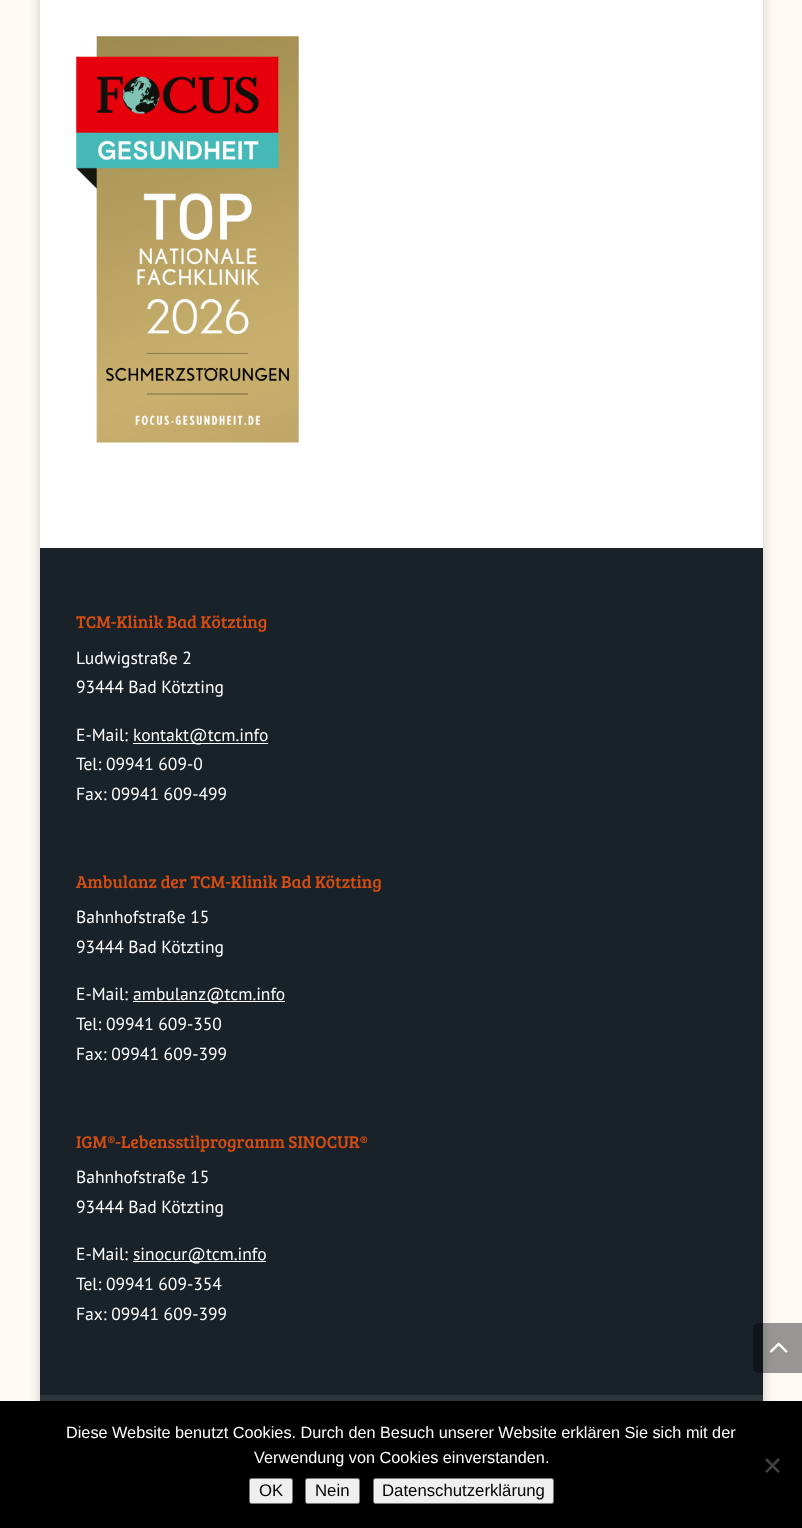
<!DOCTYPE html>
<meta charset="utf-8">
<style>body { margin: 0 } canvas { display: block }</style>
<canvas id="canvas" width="802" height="1528"></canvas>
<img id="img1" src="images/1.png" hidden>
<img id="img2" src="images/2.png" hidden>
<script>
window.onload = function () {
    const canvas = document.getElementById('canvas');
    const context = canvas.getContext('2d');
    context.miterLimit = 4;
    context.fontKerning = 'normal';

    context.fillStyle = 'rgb(254, 251, 245)';
    context.fillRect(0, 0, 802, 1528);
    context.fillStyle = 'rgba(0, 0, 0, 0.2)';
    context.filter = 'blur(6px)';
    context.beginPath();
    context.rect(40, -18, 723, 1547);
    context.fill();
    context.filter = 'none';
    context.fillStyle = 'rgb(255, 255, 255)';
    context.fillRect(40, 0, 723, 548);
    context.drawImage(document.getElementById('img1'), 76, 36, 223, 407);
    context.fillStyle = 'rgb(25, 34, 40)';
    context.fillRect(40, 548, 723, 847);
    context.fillStyle = 'rgb(255, 255, 255)';
    context.fillRect(133, 743, 135, 1);
    context.fillRect(133, 1001, 152, 1);
    context.fillRect(133, 1261, 133, 1);
    context.fillStyle = 'rgb(45, 54, 59)';
    context.fillRect(40, 1395, 723, 6);
    context.fillStyle = 'rgba(0, 0, 0, 0.4)';
    context.beginPath();
    context.moveTo(759, 1323);
    context.lineTo(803, 1323);
    context.lineTo(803, 1373);
    context.lineTo(759, 1373);
    context.bezierCurveTo(755.5, 1373, 753, 1370.5, 753, 1367);
    context.lineTo(753, 1329);
    context.bezierCurveTo(753, 1325.5, 755.5, 1323, 759, 1323);
    context.closePath();
    context.fill();
    context.drawImage(document.getElementById('img2'), 769, 1342, 19, 11);
    context.fillStyle = 'rgb(0, 0, 0)';
    context.fillRect(0, 1401, 802, 127);
    context.fillStyle = 'rgb(64, 64, 64)';
    context.beginPath();
    context.moveTo(778, 1458);
    context.lineTo(780, 1460);
    context.lineTo(767, 1473);
    context.lineTo(765, 1471.5);
    context.closePath();
    context.fill();
    context.beginPath();
    context.moveTo(765, 1460);
    context.lineTo(767, 1458);
    context.lineTo(780, 1471.5);
    context.lineTo(778, 1473);
    context.closePath();
    context.fill();
    context.fillStyle = 'rgb(239, 239, 239)';
    context.beginPath();
    context.roundRect(249.5, 1478.5, 43, 25, 2);
    context.fill();
    context.strokeStyle = 'rgb(118, 118, 118)';
    context.stroke();
    context.beginPath();
    context.roundRect(305.5, 1478.5, 54, 25, 2);
    context.fill();
    context.stroke();
    context.beginPath();
    context.roundRect(373.5, 1478.5, 180, 25, 2);
    context.fill();
    context.stroke();
    context.font = '17.5px Bree Serif';
    context.fillStyle = 'rgb(213, 77, 19)';
    context.fillText('TCM-Klinik Bad Kötzting', 76, 628);
    context.font = '17.5px PT Sans';
    context.fillStyle = 'rgb(255, 255, 255)';
    context.fillText('Ludwigstraße 2', 76, 664);
    context.fillText('93444 Bad Kötzting', 76, 693);
    context.fillText('E-Mail:', 76, 741);
    context.fillText('kontakt@tcm.info', 133, 741);
    context.fillText('Tel: 09941 609-0', 76, 770);
    context.fillText('Fax: 09941 609-499', 76, 800);
    context.font = '17.5px Bree Serif';
    context.fillStyle = 'rgb(213, 77, 19)';
    context.fillText('Ambulanz der TCM-Klinik Bad Kötzting', 76, 888);
    context.font = '17.5px PT Sans';
    context.fillStyle = 'rgb(255, 255, 255)';
    context.fillText('Bahnhofstraße 15', 76, 923);
    context.fillText('93444 Bad Kötzting', 76, 953);
    context.fillText('E-Mail:', 76, 1000);
    context.fillText('ambulanz@tcm.info', 133, 1000);
    context.fillText('Tel: 09941 609-350', 76, 1030);
    context.fillText('Fax: 09941 609-399', 76, 1060);
    context.font = '17.5px Bree Serif';
    context.fillStyle = 'rgb(213, 77, 19)';
    context.fillText('IGM®-Lebensstilprogramm SINOCUR®', 76, 1148);
    context.font = '17.5px PT Sans';
    context.fillStyle = 'rgb(255, 255, 255)';
    context.fillText('Bahnhofstraße 15', 76, 1183);
    context.fillText('93444 Bad Kötzting', 76, 1213);
    context.fillText('E-Mail:', 76, 1260);
    context.fillText('sinocur@tcm.info', 133, 1260);
    context.fillText('Tel: 09941 609-354', 76, 1290);
    context.fillText('Fax: 09941 609-399', 76, 1320);
    context.font = '16.25px Liberation Sans';
    context.fillText('Diese Website benutzt Cookies. Durch den Besuch unserer Website erklären Sie sich mit der', 66, 1438);
    context.fillText('Verwendung von Cookies einverstanden.', 254, 1463);
    context.font = '16.75px Liberation Sans';
    context.fillStyle = 'rgb(0, 0, 0)';
    context.fillText('OK', 259, 1496);
    context.fillText('Nein', 315, 1496);
    context.fillText('Datenschutzerklärung', 382, 1496);
};
</script>
